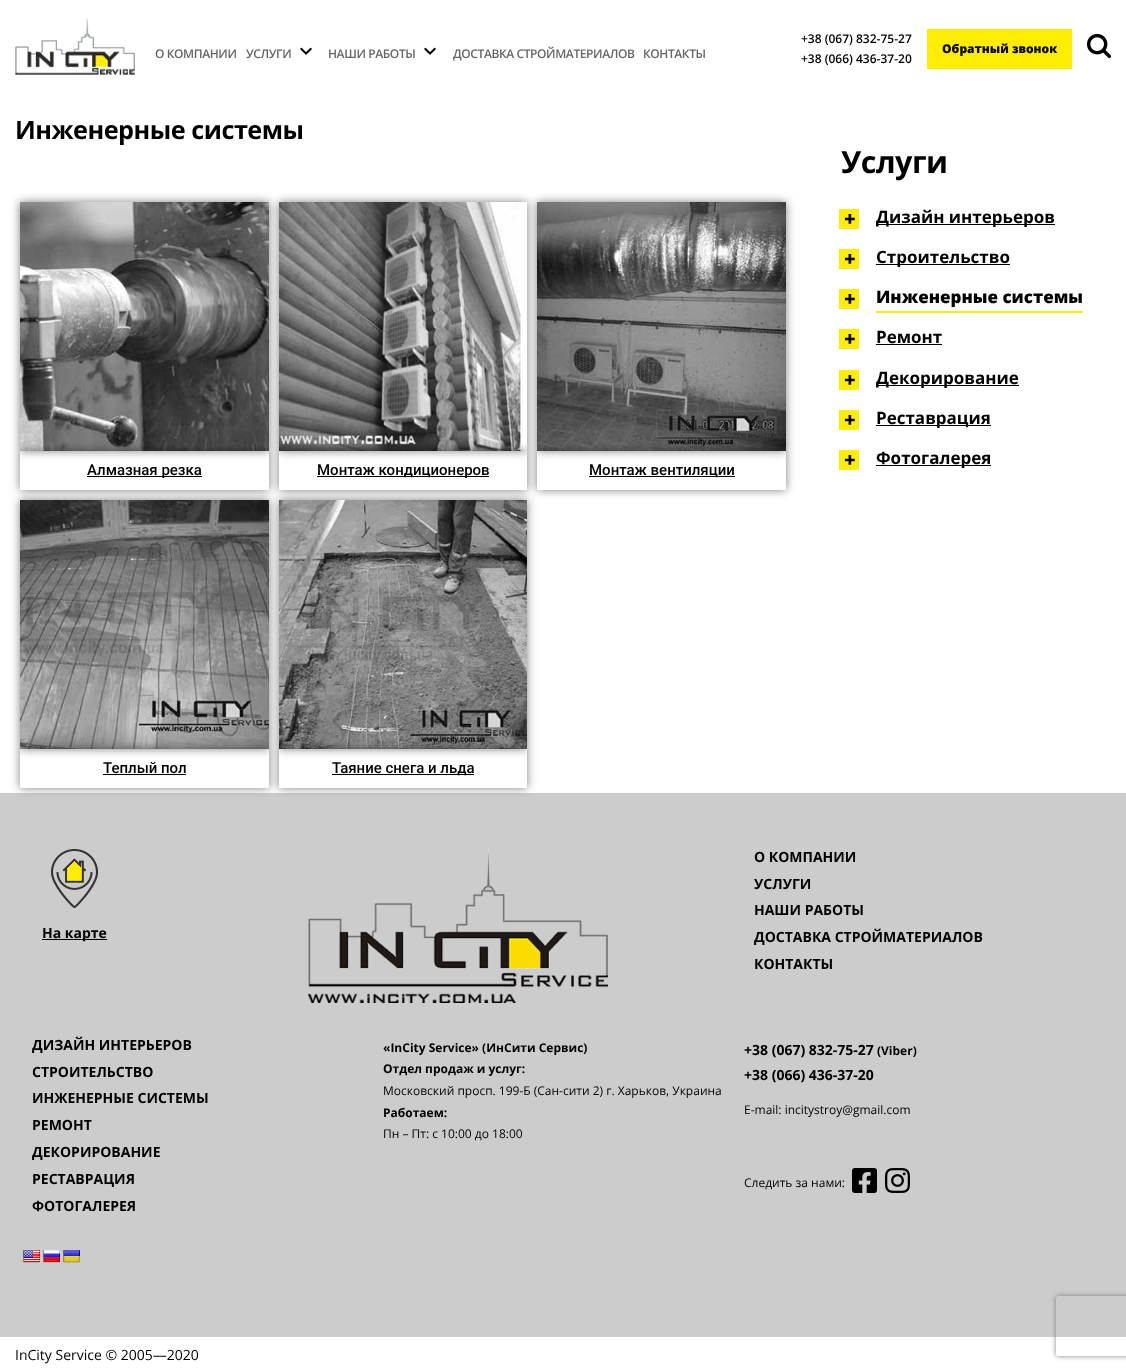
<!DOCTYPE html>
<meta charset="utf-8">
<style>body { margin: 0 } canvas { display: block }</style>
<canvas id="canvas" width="1126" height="1370"></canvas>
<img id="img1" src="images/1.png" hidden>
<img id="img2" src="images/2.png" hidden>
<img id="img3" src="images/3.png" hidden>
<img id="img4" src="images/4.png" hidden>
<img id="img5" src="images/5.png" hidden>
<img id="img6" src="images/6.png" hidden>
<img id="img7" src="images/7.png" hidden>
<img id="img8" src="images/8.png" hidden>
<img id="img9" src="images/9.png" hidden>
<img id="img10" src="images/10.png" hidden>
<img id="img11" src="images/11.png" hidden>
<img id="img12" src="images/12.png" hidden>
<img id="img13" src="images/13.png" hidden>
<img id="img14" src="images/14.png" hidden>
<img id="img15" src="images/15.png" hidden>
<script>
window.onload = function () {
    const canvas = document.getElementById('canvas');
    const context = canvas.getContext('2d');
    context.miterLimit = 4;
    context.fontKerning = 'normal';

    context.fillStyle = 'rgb(255, 255, 255)';
    context.fillRect(0, 0, 1126, 1370);
    context.drawImage(document.getElementById('img1'), 15, 18, 120, 57);
    context.drawImage(document.getElementById('img2'), 300, 47, 12, 8);
    context.drawImage(document.getElementById('img2'), 424, 47, 12, 8);
    context.fillStyle = 'rgb(255, 237, 0)';
    context.fillRect(927, 29, 145, 40);
    context.drawImage(document.getElementById('img3'), 1087, 34, 24, 24);
    context.fillStyle = 'rgba(0, 0, 0, 0.5)';
    context.filter = 'blur(5px)';
    context.beginPath();
    context.rect(20, 202, 249, 249);
    context.fill();
    context.filter = 'none';
    context.drawImage(document.getElementById('img4'), 20, 202, 249, 249);
    context.save();
    context.beginPath();
    context.moveTo(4, 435);
    context.lineTo(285, 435);
    context.lineTo(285, 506);
    context.lineTo(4, 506);
    context.closePath();
    context.moveTo(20, 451);
    context.lineTo(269, 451);
    context.lineTo(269, 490);
    context.lineTo(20, 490);
    context.closePath();
    context.clip('evenodd');
    context.filter = 'blur(5px)';
    context.beginPath();
    context.rect(20, 451, 249, 39);
    context.fill();
    context.filter = 'none';
    context.restore();
    context.fillStyle = 'rgb(0, 0, 0)';
    context.fillRect(87, 476, 115, 1);
    context.save();
    context.beginPath();
    context.moveTo(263, 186);
    context.lineTo(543, 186);
    context.lineTo(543, 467);
    context.lineTo(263, 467);
    context.closePath();
    context.moveTo(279, 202);
    context.lineTo(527, 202);
    context.lineTo(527, 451);
    context.lineTo(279, 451);
    context.closePath();
    context.clip('evenodd');
    context.fillStyle = 'rgba(0, 0, 0, 0.5)';
    context.filter = 'blur(5px)';
    context.beginPath();
    context.rect(279, 202, 248, 249);
    context.fill();
    context.filter = 'none';
    context.restore();
    context.drawImage(document.getElementById('img5'), 279, 202, 245, 249);
    context.save();
    context.beginPath();
    context.moveTo(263, 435);
    context.lineTo(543, 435);
    context.lineTo(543, 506);
    context.lineTo(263, 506);
    context.closePath();
    context.moveTo(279, 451);
    context.lineTo(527, 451);
    context.lineTo(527, 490);
    context.lineTo(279, 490);
    context.closePath();
    context.clip('evenodd');
    context.fillStyle = 'rgba(0, 0, 0, 0.5)';
    context.filter = 'blur(5px)';
    context.beginPath();
    context.rect(279, 451, 248, 39);
    context.fill();
    context.filter = 'none';
    context.restore();
    context.fillRect(317, 476, 172, 1);
    context.fillStyle = 'rgba(0, 0, 0, 0.5)';
    context.filter = 'blur(5px)';
    context.beginPath();
    context.rect(537, 202, 249, 249);
    context.fill();
    context.filter = 'none';
    context.drawImage(document.getElementById('img6'), 537, 202, 249, 249);
    context.save();
    context.beginPath();
    context.moveTo(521, 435);
    context.lineTo(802, 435);
    context.lineTo(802, 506);
    context.lineTo(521, 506);
    context.closePath();
    context.moveTo(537, 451);
    context.lineTo(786, 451);
    context.lineTo(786, 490);
    context.lineTo(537, 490);
    context.closePath();
    context.clip('evenodd');
    context.filter = 'blur(5px)';
    context.beginPath();
    context.rect(537, 451, 249, 39);
    context.fill();
    context.filter = 'none';
    context.restore();
    context.fillStyle = 'rgb(0, 0, 0)';
    context.fillRect(589, 476, 146, 1);
    context.fillStyle = 'rgba(0, 0, 0, 0.5)';
    context.filter = 'blur(5px)';
    context.beginPath();
    context.rect(20, 500, 249, 249);
    context.fill();
    context.filter = 'none';
    context.drawImage(document.getElementById('img7'), 20, 500, 249, 249);
    context.fillStyle = 'rgb(204, 204, 204)';
    context.fillRect(0, 793, 1126, 544);
    context.save();
    context.beginPath();
    context.moveTo(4, 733);
    context.lineTo(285, 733);
    context.lineTo(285, 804);
    context.lineTo(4, 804);
    context.closePath();
    context.moveTo(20, 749);
    context.lineTo(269, 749);
    context.lineTo(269, 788);
    context.lineTo(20, 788);
    context.closePath();
    context.clip('evenodd');
    context.fillStyle = 'rgba(0, 0, 0, 0.5)';
    context.filter = 'blur(5px)';
    context.beginPath();
    context.rect(20, 749, 249, 39);
    context.fill();
    context.filter = 'none';
    context.restore();
    context.fillStyle = 'rgb(0, 0, 0)';
    context.fillRect(103, 774, 83, 1);
    context.fillStyle = 'rgba(0, 0, 0, 0.5)';
    context.filter = 'blur(5px)';
    context.beginPath();
    context.rect(279, 500, 248, 249);
    context.fill();
    context.filter = 'none';
    context.drawImage(document.getElementById('img8'), 279, 500, 248, 249);
    context.save();
    context.beginPath();
    context.moveTo(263, 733);
    context.lineTo(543, 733);
    context.lineTo(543, 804);
    context.lineTo(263, 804);
    context.closePath();
    context.moveTo(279, 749);
    context.lineTo(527, 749);
    context.lineTo(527, 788);
    context.lineTo(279, 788);
    context.closePath();
    context.clip('evenodd');
    context.filter = 'blur(5px)';
    context.beginPath();
    context.rect(279, 749, 248, 39);
    context.fill();
    context.filter = 'none';
    context.restore();
    context.fillStyle = 'rgb(0, 0, 0)';
    context.fillRect(332, 774, 142, 1);
    context.fillStyle = 'rgb(255, 237, 0)';
    context.fillRect(839, 209, 20, 20);
    context.fillStyle = 'rgb(0, 0, 0)';
    context.fillRect(876, 224, 179, 1);
    context.fillStyle = 'rgb(255, 237, 0)';
    context.fillRect(839, 249, 20, 20);
    context.fillStyle = 'rgb(0, 0, 0)';
    context.fillRect(876, 264, 134, 1);
    context.fillStyle = 'rgb(255, 237, 0)';
    context.fillRect(839, 289, 20, 20);
    context.fillRect(876, 311, 207, 2);
    context.fillRect(839, 329, 20, 20);
    context.fillStyle = 'rgb(0, 0, 0)';
    context.fillRect(876, 344, 66, 1);
    context.fillStyle = 'rgb(255, 237, 0)';
    context.fillRect(839, 370, 20, 20);
    context.fillStyle = 'rgb(0, 0, 0)';
    context.fillRect(876, 385, 143, 1);
    context.fillStyle = 'rgb(255, 237, 0)';
    context.fillRect(839, 410, 20, 20);
    context.fillStyle = 'rgb(0, 0, 0)';
    context.fillRect(876, 425, 115, 1);
    context.fillStyle = 'rgb(255, 237, 0)';
    context.fillRect(839, 450, 20, 20);
    context.fillStyle = 'rgb(0, 0, 0)';
    context.fillRect(876, 465, 115, 1);
    context.drawImage(document.getElementById('img9'), 51, 849, 47, 59);
    context.fillRect(42, 939, 65, 1);
    context.drawImage(document.getElementById('img10'), 308, 849, 300, 154);
    context.drawImage(document.getElementById('img11'), 852, 1168, 25, 25);
    context.drawImage(document.getElementById('img12'), 885, 1168, 25, 25);
    context.drawImage(document.getElementById('img13'), 23, 1250, 17, 13);
    context.drawImage(document.getElementById('img14'), 43, 1250, 17, 13);
    context.drawImage(document.getElementById('img15'), 63, 1250, 17, 13);
    context.save();
    context.beginPath();
    context.moveTo(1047, 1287);
    context.lineTo(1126, 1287);
    context.lineTo(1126, 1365);
    context.lineTo(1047, 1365);
    context.closePath();
    context.moveTo(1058, 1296);
    context.lineTo(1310, 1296);
    context.bezierCurveTo(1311, 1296, 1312, 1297, 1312, 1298);
    context.lineTo(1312, 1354);
    context.bezierCurveTo(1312, 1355, 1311, 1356, 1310, 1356);
    context.lineTo(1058, 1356);
    context.bezierCurveTo(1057, 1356, 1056, 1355, 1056, 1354);
    context.lineTo(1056, 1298);
    context.bezierCurveTo(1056, 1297, 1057, 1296, 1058, 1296);
    context.closePath();
    context.clip('evenodd');
    context.fillStyle = 'rgb(128, 128, 128)';
    context.filter = 'blur(2.5px)';
    context.beginPath();
    context.roundRect(1056, 1296, 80, 60, 2);
    context.fill();
    context.filter = 'none';
    context.restore();
    context.letterSpacing = '-0.4px';
    context.font = '600 12px Open Sans';
    context.fillStyle = 'rgb(102, 102, 102)';
    context.fillText('О КОМПАНИИ', 155, 58);
    context.fillText('УСЛУГИ', 246, 58);
    context.fillText('НАШИ РАБОТЫ', 328, 58);
    context.fillText('ДОСТАВКА СТРОЙМАТЕРИАЛОВ', 453, 58);
    context.fillText('КОНТАКТЫ', 643, 58);
    context.letterSpacing = '0px';
    context.fillStyle = 'rgb(0, 0, 0)';
    context.fillText('+38 (067) 832-75-27', 801, 43);
    context.fillText('+38 (066) 436-37-20', 801, 63);
    context.font = '800 12px Open Sans';
    context.fillText('Обратный звонок', 942, 53);
    context.letterSpacing = '-0.5px';
    context.font = 'bold 25.25px Open Sans';
    context.fillText('Инженерные системы', 15, 139);
    context.letterSpacing = '0px';
    context.font = '500 15px Roboto';
    context.fillText('Алмазная резка', 87, 475);
    context.fillText('Монтаж кондиционеров', 317, 475);
    context.fillText('Монтаж вентиляции', 589, 475);
    context.fillText('Теплый пол', 103, 773);
    context.fillText('Таяние снега и льда', 332, 773);
    context.letterSpacing = '-0.5px';
    context.font = 'bold 30.5px Open Sans';
    context.fillText('Услуги', 841, 173);
    context.letterSpacing = '0px';
    context.font = 'bold 17px Open Sans';
    context.fillText('Дизайн интерьеров', 876, 223);
    context.font = '800 20px Open Sans';
    context.fillText('+', 844, 226);
    context.font = 'bold 17px Open Sans';
    context.fillText('Строительство', 876, 263);
    context.font = '800 20px Open Sans';
    context.fillText('+', 844, 266);
    context.font = '800 17px Open Sans';
    context.fillText('Инженерные системы', 876, 303);
    context.font = '800 20px Open Sans';
    context.fillText('+', 844, 306);
    context.font = 'bold 17px Open Sans';
    context.fillText('Ремонт', 876, 343);
    context.font = '800 20px Open Sans';
    context.fillText('+', 844, 346);
    context.font = 'bold 17px Open Sans';
    context.fillText('Декорирование', 876, 384);
    context.font = '800 20px Open Sans';
    context.fillText('+', 844, 387);
    context.font = 'bold 17px Open Sans';
    context.fillText('Реставрация', 876, 424);
    context.font = '800 20px Open Sans';
    context.fillText('+', 844, 427);
    context.font = 'bold 17px Open Sans';
    context.fillText('Фотогалерея', 876, 464);
    context.font = '800 20px Open Sans';
    context.fillText('+', 844, 467);
    context.font = 'bold 14px Open Sans';
    context.fillText('На карте', 42, 938);
    context.fillText('О КОМПАНИИ', 754, 862);
    context.fillText('УСЛУГИ', 754, 889);
    context.fillText('НАШИ РАБОТЫ', 754, 915);
    context.fillText('ДОСТАВКА СТРОЙМАТЕРИАЛОВ', 754, 942);
    context.fillText('КОНТАКТЫ', 754, 969);
    context.fillText('ДИЗАЙН ИНТЕРЬЕРОВ', 32, 1050);
    context.fillText('СТРОИТЕЛЬСТВО', 32, 1077);
    context.fillText('ИНЖЕНЕРНЫЕ СИСТЕМЫ', 32, 1103);
    context.fillText('РЕМОНТ', 32, 1130);
    context.fillText('ДЕКОРИРОВАНИЕ', 32, 1157);
    context.fillText('РЕСТАВРАЦИЯ', 32, 1184);
    context.fillText('ФОТОГАЛЕРЕЯ', 32, 1211);
    context.font = 'bold 12px Open Sans';
    context.fillText('«InCity Service» (ИнСити Сервис)', 383, 1052);
    context.fillText('Отдел продаж и услуг:', 383, 1073);
    context.font = '12px Open Sans';
    context.fillText('Московский просп. 199-Б (Сан-сити 2) г. Харьков, Украина', 383, 1095);
    context.font = 'bold 12px Open Sans';
    context.fillText('Работаем:', 383, 1117);
    context.font = '12px Open Sans';
    context.fillText('Пн – Пт: с 10:00 до 18:00', 383, 1138);
    context.font = 'bold 14px Open Sans';
    context.fillText('+38 (067) 832-75-27', 744, 1055);
    context.font = 'bold 12px Open Sans';
    context.fillText('(Viber)', 877, 1055);
    context.font = 'bold 14px Open Sans';
    context.fillText('+38 (066) 436-37-20', 744, 1080);
    context.font = '12px Open Sans';
    context.fillText('E-mail: incitystroy@gmail.com', 744, 1114);
    context.fillText('Следить за нами:', 744, 1187);
    context.font = '14px Open Sans';
    context.fillText('InCity Service © 2005—2020', 15, 1360);
};
</script>
